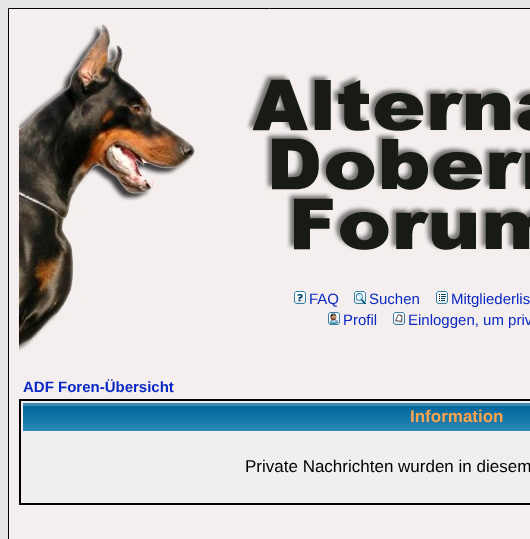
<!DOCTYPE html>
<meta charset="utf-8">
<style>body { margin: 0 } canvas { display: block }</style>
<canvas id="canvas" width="530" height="539"></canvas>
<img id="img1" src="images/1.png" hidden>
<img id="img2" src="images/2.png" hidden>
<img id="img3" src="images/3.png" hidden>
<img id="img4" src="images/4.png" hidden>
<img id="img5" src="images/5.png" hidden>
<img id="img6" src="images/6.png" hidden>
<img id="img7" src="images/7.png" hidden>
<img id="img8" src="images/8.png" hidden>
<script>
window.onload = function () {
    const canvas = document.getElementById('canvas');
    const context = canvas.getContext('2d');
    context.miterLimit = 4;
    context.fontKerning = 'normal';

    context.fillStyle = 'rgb(229, 229, 229)';
    context.fillRect(0, 0, 530, 539);
    context.fillStyle = 'rgb(244, 239, 238)';
    context.beginPath();
    context.rect(8.5, 8.5, 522, 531);
    context.fill();
    context.strokeStyle = 'rgb(0, 0, 0)';
    context.stroke();
    context.drawImage(document.getElementById('img1'), 19, 24, 176, 328);
    context.drawImage(document.getElementById('img2'), 246, 73, 284, 178);
    context.drawImage(document.getElementById('img3'), 294, 291, 12, 13);
    context.drawImage(document.getElementById('img4'), 354, 291, 12, 13);
    context.drawImage(document.getElementById('img5'), 436, 291, 12, 13);
    context.drawImage(document.getElementById('img6'), 328, 312, 12, 13);
    context.drawImage(document.getElementById('img7'), 393, 312, 12, 13);
    context.lineWidth = 2;
    context.strokeRect(20, 400, 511, 104);
    context.drawImage(document.getElementById('img8'), 23, 403, 507, 28);
    context.fillStyle = 'rgb(239, 239, 239)';
    context.fillRect(22, 432, 508, 70);
    context.font = '15px Liberation Sans';
    context.fillStyle = 'rgb(9, 40, 196)';
    context.fillText('FAQ', 309, 304);
    context.fillText('Suchen', 369, 304);
    context.fillText('Mitgliederlis', 451, 304);
    context.fillText('Profil', 343, 325);
    context.fillText('Einloggen, um priv', 408, 325);
    context.font = 'bold 15px Liberation Sans';
    context.fillText('ADF Foren-Übersicht', 23, 392);
    context.font = 'bold 17px Liberation Sans';
    context.fillStyle = 'rgb(255, 163, 79)';
    context.fillText('Information', 410, 422);
    context.font = '17px Liberation Sans';
    context.fillStyle = 'rgb(0, 0, 0)';
    context.fillText('Private Nachrichten wurden in diesem', 245, 472);
};
</script>
